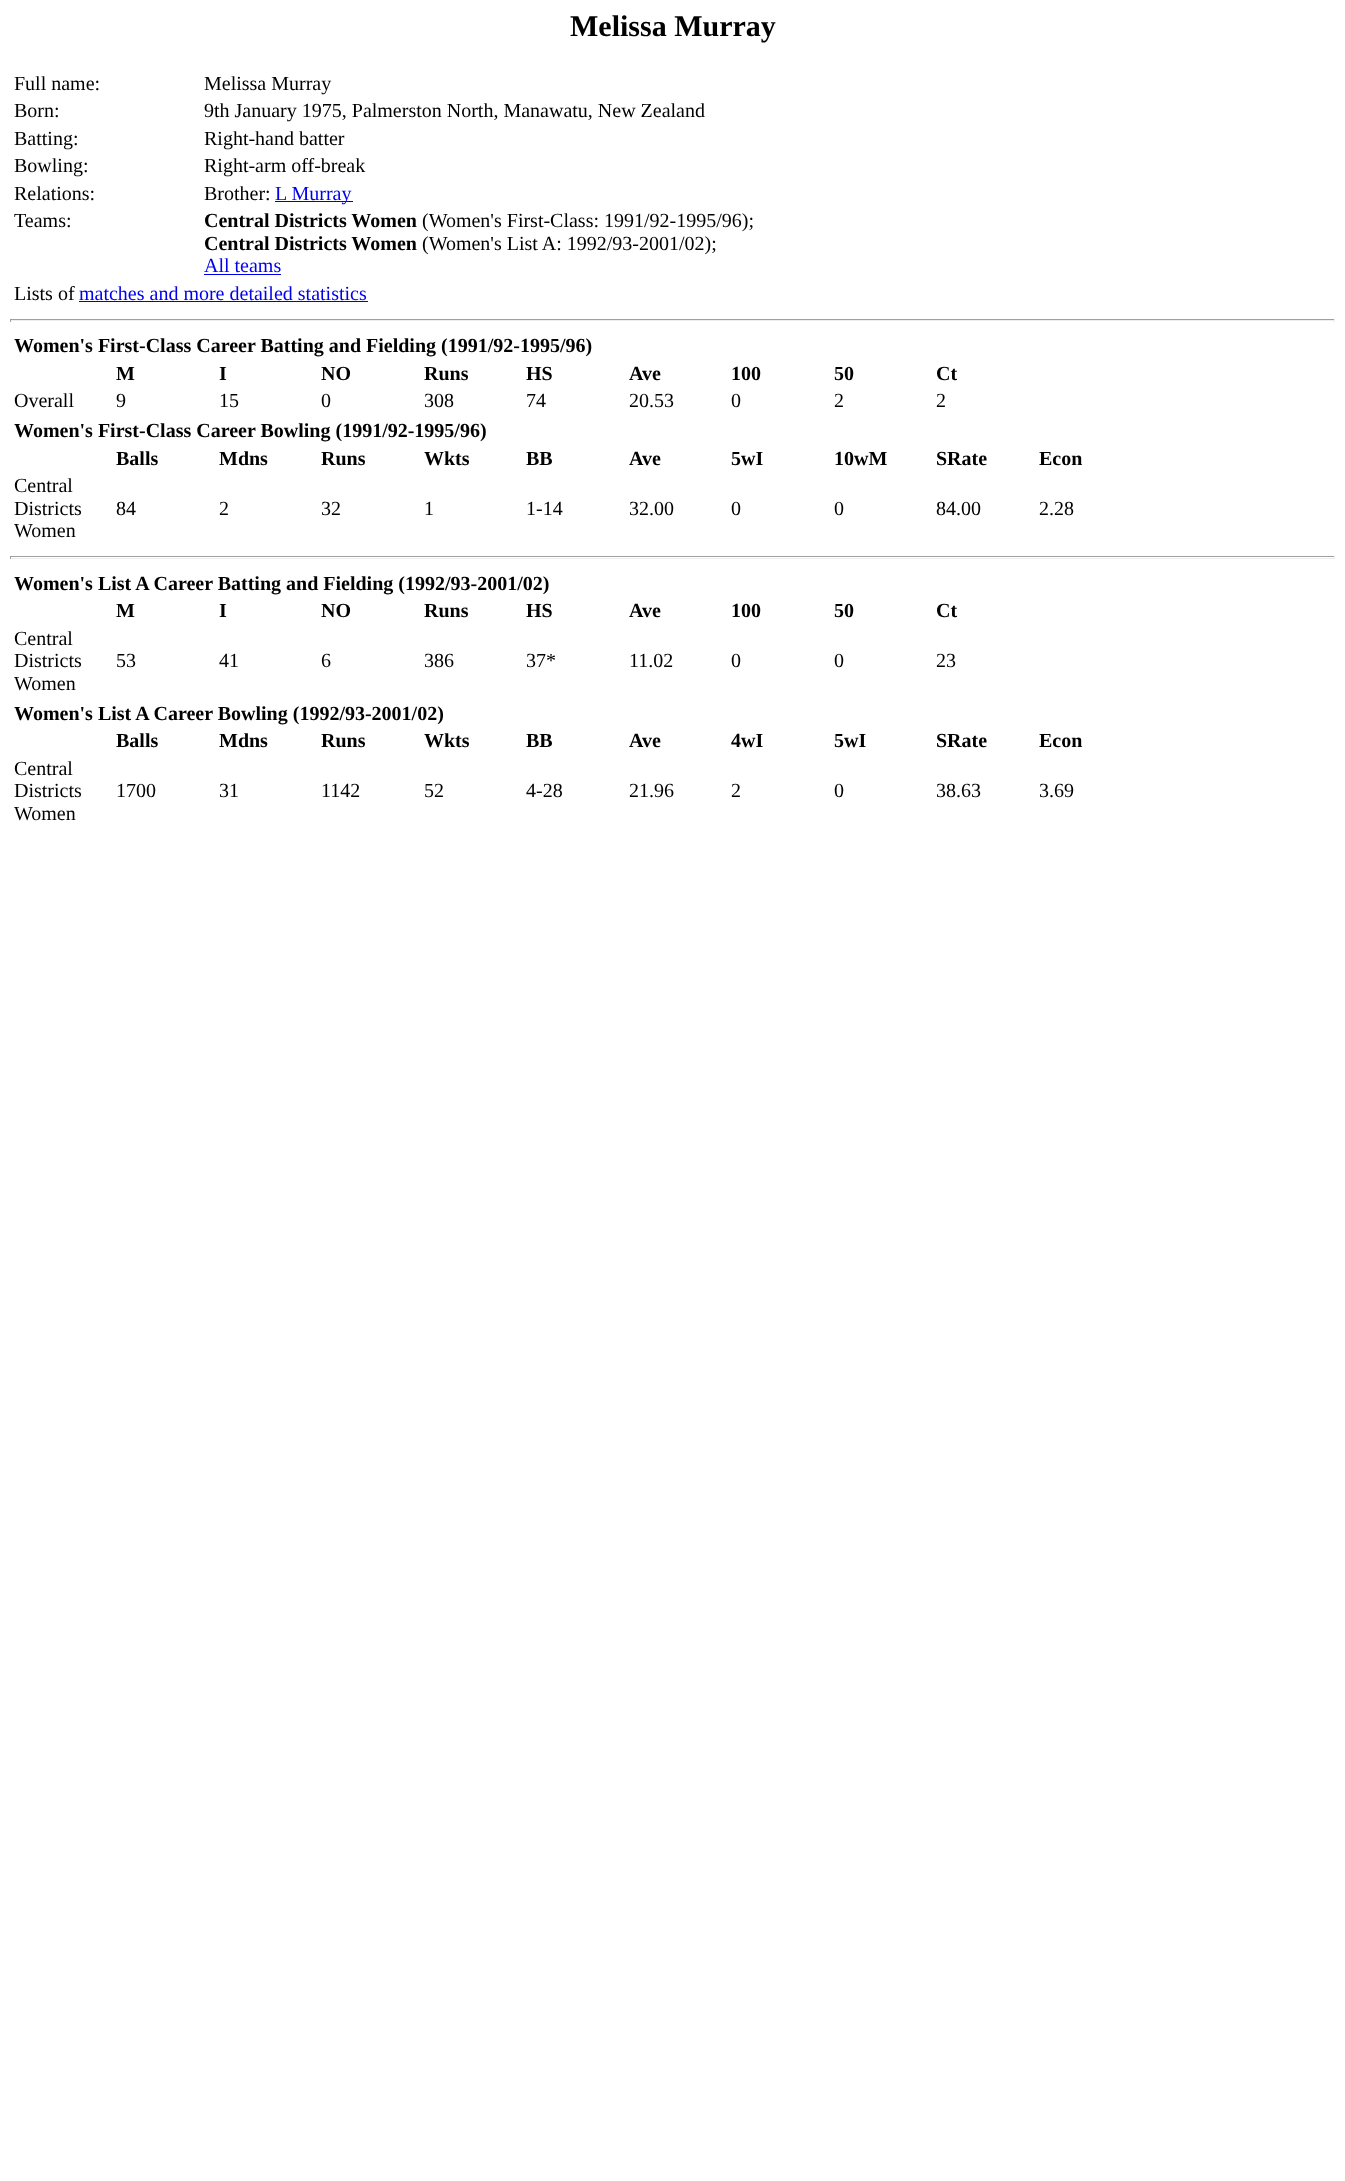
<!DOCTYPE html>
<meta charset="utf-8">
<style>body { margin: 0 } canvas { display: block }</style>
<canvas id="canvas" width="1345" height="2181"></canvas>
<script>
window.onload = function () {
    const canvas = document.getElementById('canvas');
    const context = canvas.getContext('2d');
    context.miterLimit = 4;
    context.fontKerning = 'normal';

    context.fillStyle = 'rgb(255, 255, 255)';
    context.fillRect(0, 0, 1345, 2181);
    context.fillStyle = 'rgb(0, 0, 238)';
    context.fillRect(275, 201, 78, 1);
    context.fillRect(204, 274, 77, 1);
    context.fillRect(79, 301, 289, 1);
    context.fillStyle = 'rgb(159, 159, 159)';
    context.fillRect(10, 319, 1325, 1);
    context.fillStyle = 'rgb(238, 238, 238)';
    context.fillRect(1334, 319, 1, 3);
    context.fillRect(10, 320, 1325, 1);
    context.fillStyle = 'rgb(159, 159, 159)';
    context.fillRect(10, 319, 1, 3);
    context.fillRect(10, 556, 1325, 1);
    context.fillStyle = 'rgb(238, 238, 238)';
    context.fillRect(1334, 556, 1, 3);
    context.fillRect(10, 558, 1325, 1);
    context.fillStyle = 'rgb(159, 159, 159)';
    context.fillRect(10, 556, 1, 3);
    context.font = 'bold 30px Liberation Serif';
    context.fillStyle = 'rgb(0, 0, 0)';
    context.fillText('Melissa Murray', 570, 36);
    context.font = '20px Liberation Serif';
    context.fillText('Full name:', 14, 90);
    context.fillText('Melissa Murray', 204, 90);
    context.fillText('Born:', 14, 117);
    context.fillText('9th January 1975, Palmerston North, Manawatu, New Zealand', 204, 117);
    context.fillText('Batting:', 14, 145);
    context.fillText('Right-hand batter', 204, 145);
    context.fillText('Bowling:', 14, 172);
    context.fillText('Right-arm off-break', 204, 172);
    context.fillText('Relations:', 14, 200);
    context.fillText('Brother:', 204, 200);
    context.fillStyle = 'rgb(0, 0, 238)';
    context.fillText('L Murray', 275, 200);
    context.fillStyle = 'rgb(0, 0, 0)';
    context.fillText('Teams:', 14, 227);
    context.font = 'bold 20px Liberation Serif';
    context.fillText('Central Districts Women', 204, 227);
    context.font = '20px Liberation Serif';
    context.fillText('(Women\'s First-Class: 1991/92-1995/96);', 422, 227);
    context.font = 'bold 20px Liberation Serif';
    context.fillText('Central Districts Women', 204, 250);
    context.font = '20px Liberation Serif';
    context.fillText('(Women\'s List A: 1992/93-2001/02);', 422, 250);
    context.fillStyle = 'rgb(0, 0, 238)';
    context.fillText('All teams', 204, 272);
    context.fillStyle = 'rgb(0, 0, 0)';
    context.fillText('Lists of', 14, 300);
    context.fillStyle = 'rgb(0, 0, 238)';
    context.fillText('matches and more detailed statistics', 79, 300);
    context.font = 'bold 20px Liberation Serif';
    context.fillStyle = 'rgb(0, 0, 0)';
    context.fillText('Women\'s First-Class Career Batting and Fielding (1991/92-1995/96)', 14, 352);
    context.fillText('M', 116, 380);
    context.fillText('I', 219, 380);
    context.fillText('NO', 321, 380);
    context.fillText('Runs', 424, 380);
    context.fillText('HS', 526, 380);
    context.fillText('Ave', 629, 380);
    context.fillText('100', 731, 380);
    context.fillText('50', 834, 380);
    context.fillText('Ct', 936, 380);
    context.font = '20px Liberation Serif';
    context.fillText('Overall', 14, 407);
    context.fillText('9', 116, 407);
    context.fillText('15', 219, 407);
    context.fillText('0', 321, 407);
    context.fillText('308', 424, 407);
    context.fillText('74', 526, 407);
    context.fillText('20.53', 629, 407);
    context.fillText('0', 731, 407);
    context.fillText('2', 834, 407);
    context.fillText('2', 936, 407);
    context.font = 'bold 20px Liberation Serif';
    context.fillText('Women\'s First-Class Career Bowling (1991/92-1995/96)', 14, 437);
    context.fillText('Balls', 116, 465);
    context.fillText('Mdns', 219, 465);
    context.fillText('Runs', 321, 465);
    context.fillText('Wkts', 424, 465);
    context.fillText('BB', 526, 465);
    context.fillText('Ave', 629, 465);
    context.fillText('5wI', 731, 465);
    context.fillText('10wM', 834, 465);
    context.fillText('SRate', 936, 465);
    context.fillText('Econ', 1039, 465);
    context.font = '20px Liberation Serif';
    context.fillText('Central', 14, 492);
    context.fillText('Districts', 14, 515);
    context.fillText('Women', 14, 537);
    context.fillText('84', 116, 515);
    context.fillText('2', 219, 515);
    context.fillText('32', 321, 515);
    context.fillText('1', 424, 515);
    context.fillText('1-14', 526, 515);
    context.fillText('32.00', 629, 515);
    context.fillText('0', 731, 515);
    context.fillText('0', 834, 515);
    context.fillText('84.00', 936, 515);
    context.fillText('2.28', 1039, 515);
    context.font = 'bold 20px Liberation Serif';
    context.fillText('Women\'s List A Career Batting and Fielding (1992/93-2001/02)', 14, 590);
    context.fillText('M', 116, 617);
    context.fillText('I', 219, 617);
    context.fillText('NO', 321, 617);
    context.fillText('Runs', 424, 617);
    context.fillText('HS', 526, 617);
    context.fillText('Ave', 629, 617);
    context.fillText('100', 731, 617);
    context.fillText('50', 834, 617);
    context.fillText('Ct', 936, 617);
    context.font = '20px Liberation Serif';
    context.fillText('Central', 14, 645);
    context.fillText('Districts', 14, 667);
    context.fillText('Women', 14, 690);
    context.fillText('53', 116, 667);
    context.fillText('41', 219, 667);
    context.fillText('6', 321, 667);
    context.fillText('386', 424, 667);
    context.fillText('37*', 526, 667);
    context.fillText('11.02', 629, 667);
    context.fillText('0', 731, 667);
    context.fillText('0', 834, 667);
    context.fillText('23', 936, 667);
    context.font = 'bold 20px Liberation Serif';
    context.fillText('Women\'s List A Career Bowling (1992/93-2001/02)', 14, 720);
    context.fillText('Balls', 116, 747);
    context.fillText('Mdns', 219, 747);
    context.fillText('Runs', 321, 747);
    context.fillText('Wkts', 424, 747);
    context.fillText('BB', 526, 747);
    context.fillText('Ave', 629, 747);
    context.fillText('4wI', 731, 747);
    context.fillText('5wI', 834, 747);
    context.fillText('SRate', 936, 747);
    context.fillText('Econ', 1039, 747);
    context.font = '20px Liberation Serif';
    context.fillText('Central', 14, 775);
    context.fillText('Districts', 14, 797);
    context.fillText('Women', 14, 820);
    context.fillText('1700', 116, 797);
    context.fillText('31', 219, 797);
    context.fillText('1142', 321, 797);
    context.fillText('52', 424, 797);
    context.fillText('4-28', 526, 797);
    context.fillText('21.96', 629, 797);
    context.fillText('2', 731, 797);
    context.fillText('0', 834, 797);
    context.fillText('38.63', 936, 797);
    context.fillText('3.69', 1039, 797);
};
</script>
